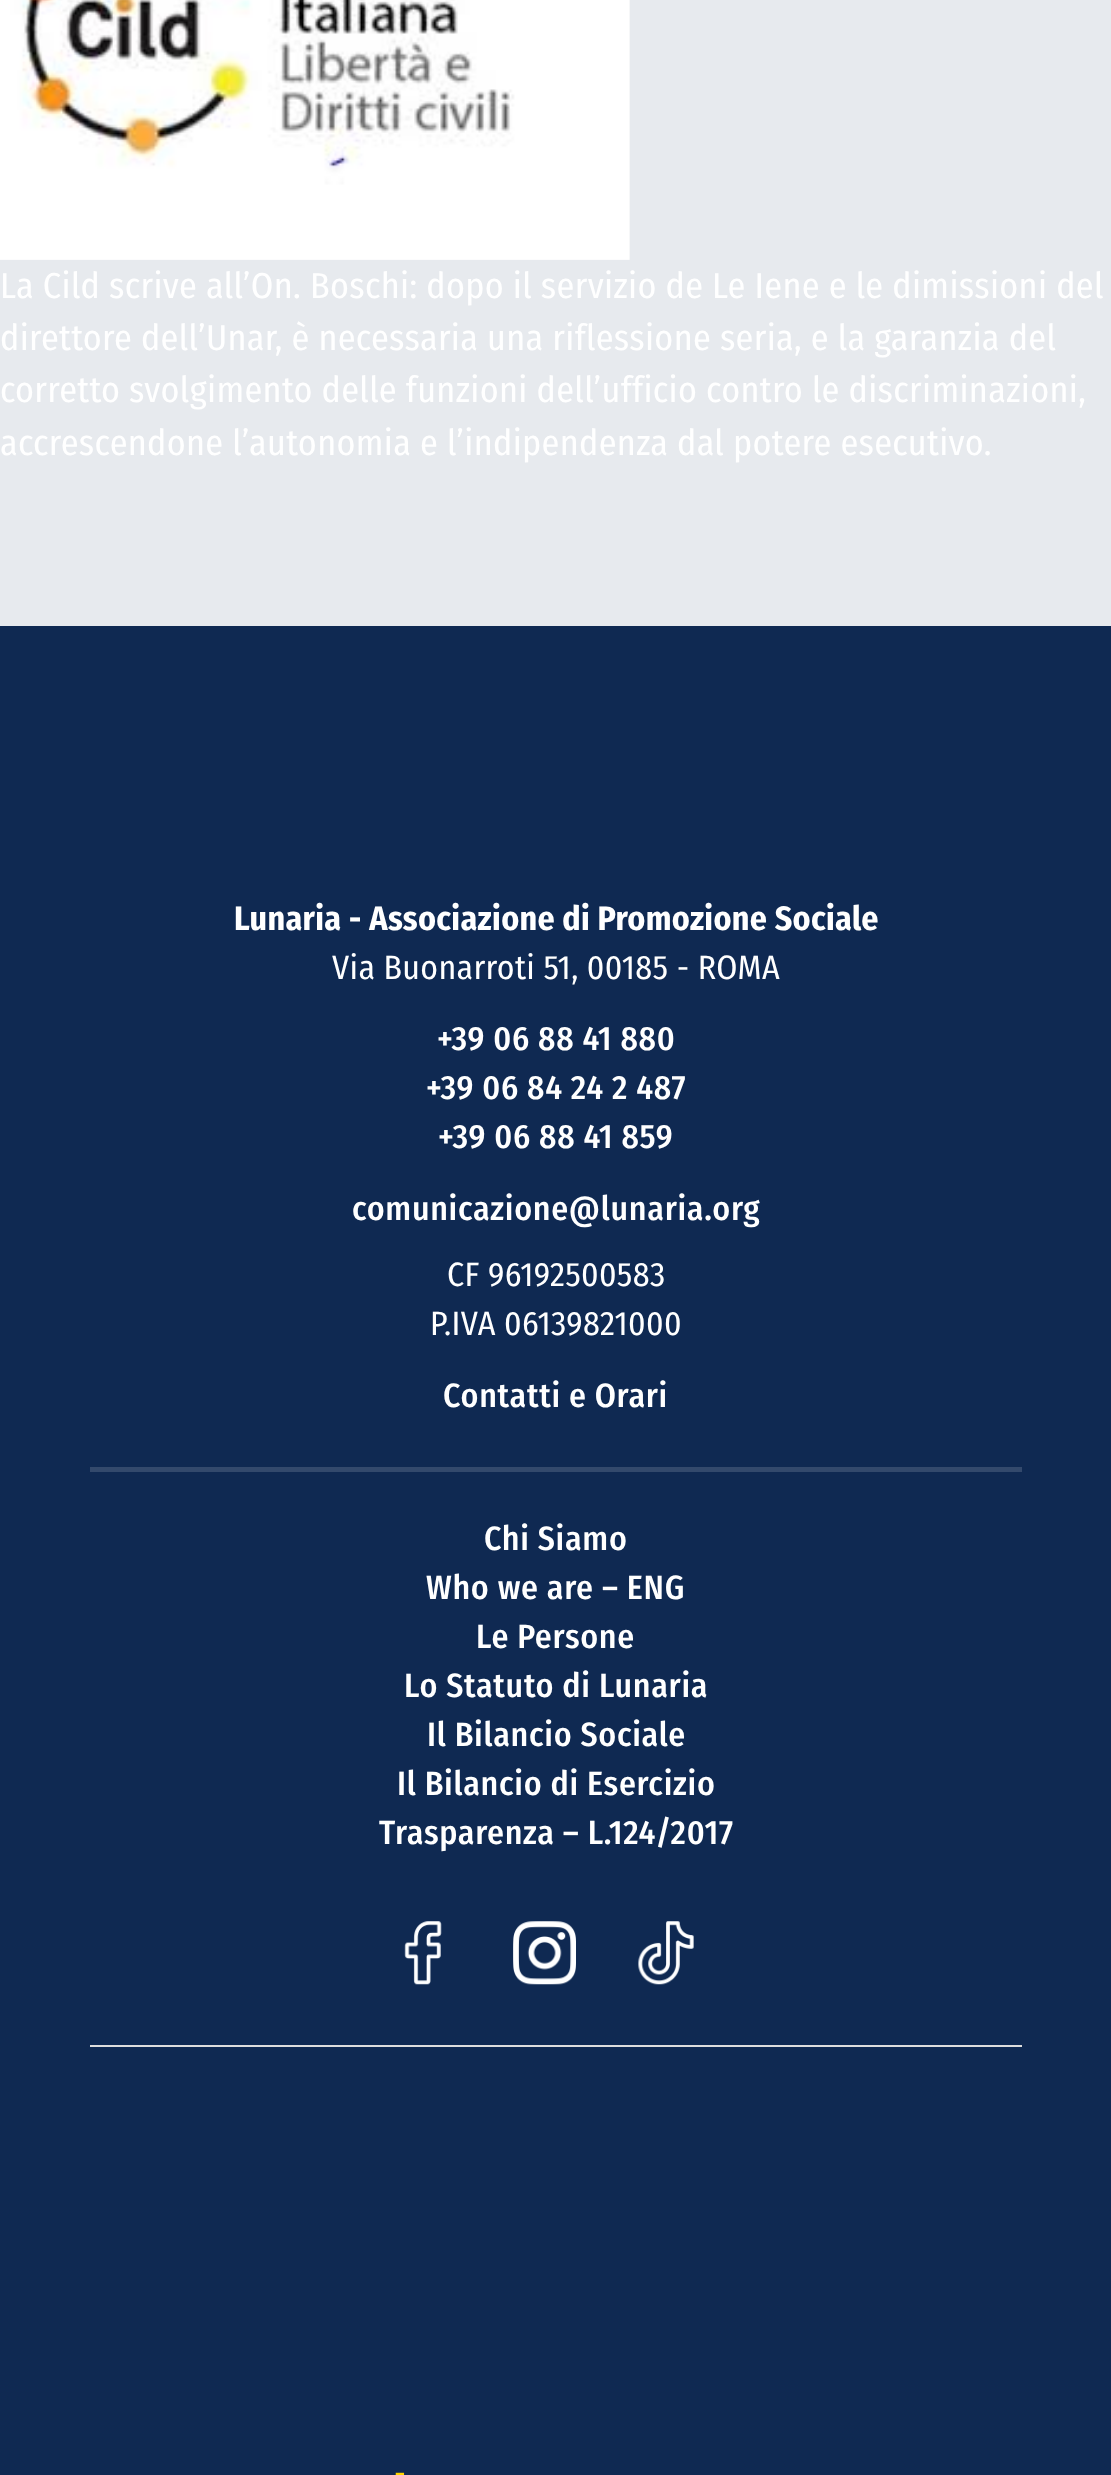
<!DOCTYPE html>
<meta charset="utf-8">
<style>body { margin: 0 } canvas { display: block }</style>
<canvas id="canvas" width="1111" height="2475"></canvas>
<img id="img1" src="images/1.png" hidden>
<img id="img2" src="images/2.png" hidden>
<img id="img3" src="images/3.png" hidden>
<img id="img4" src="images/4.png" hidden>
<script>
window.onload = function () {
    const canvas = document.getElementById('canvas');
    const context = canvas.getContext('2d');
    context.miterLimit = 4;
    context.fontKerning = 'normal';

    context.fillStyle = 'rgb(15, 41, 82)';
    context.fillRect(0, 0, 1111, 2475);
    context.fillStyle = 'rgb(231, 234, 238)';
    context.fillRect(0, 0, 1111, 626);
    context.drawImage(document.getElementById('img1'), 0, 0, 630, 260);
    context.fillStyle = 'rgb(221, 221, 221)';
    context.fillRect(90, 2045, 932, 2);
    context.fillStyle = 'rgb(51, 73, 108)';
    context.fillRect(90, 1467, 932, 5);
    context.drawImage(document.getElementById('img2'), 404, 1921, 38, 64);
    context.drawImage(document.getElementById('img3'), 513, 1921, 63, 64);
    context.drawImage(document.getElementById('img4'), 638, 1921, 56, 64);
    context.letterSpacing = '0.35px';
    context.font = '36px Fira Sans Condensed';
    context.fillStyle = 'rgb(255, 255, 255)';
    context.fillText('La Cild scrive all’On. Boschi: dopo il servizio de Le Iene e le dimissioni del', 0, 298);
    context.fillText('direttore dell’Unar, è necessaria una riflessione seria, e la garanzia del', 0, 350);
    context.fillText('corretto svolgimento delle funzioni dell’ufficio contro le discriminazioni,', 0, 402);
    context.fillText('accrescendone l’autonomia e l’indipendenza dal potere esecutivo.', 0, 455);
    context.font = 'bold 33.75px Fira Sans Condensed';
    context.fillText('Lunaria - Associazione di Promozione Sociale', 234, 930);
    context.font = '33.75px Fira Sans Condensed';
    context.fillText('Via Buonarroti 51, 00185 - ROMA', 332, 979);
    context.letterSpacing = '0.7px';
    context.font = '500 33.75px Fira Sans Condensed';
    context.fillText('+39 06 88 41 880', 437, 1050);
    context.fillText('+39 06 84 24 2 487', 426, 1099);
    context.fillText('+39 06 88 41 859', 438, 1148);
    context.fillText('comunicazione@lunaria.org', 352, 1220);
    context.letterSpacing = '0.35px';
    context.font = '33.75px Fira Sans Condensed';
    context.fillText('CF 96192500583', 447, 1286);
    context.fillText('P.IVA 06139821000', 430, 1335);
    context.letterSpacing = '0.7px';
    context.font = '500 33.75px Fira Sans Condensed';
    context.fillText('Contatti e Orari', 443, 1407);
    context.fillText('Chi Siamo', 484, 1550);
    context.fillText('Who we are – ENG', 426, 1599);
    context.fillText('Le Persone', 476, 1648);
    context.fillText('Lo Statuto di Lunaria', 404, 1697);
    context.fillText('Il Bilancio Sociale', 427, 1746);
    context.fillText('Il Bilancio di Esercizio', 397, 1795);
    context.fillText('Trasparenza – L.124/2017', 379, 1844);
    context.letterSpacing = '2px';
    context.font = '32px Fira Sans Condensed';
    context.fillStyle = 'rgb(255, 213, 0)';
    context.fillText('-', 394, 2484);
};
</script>
